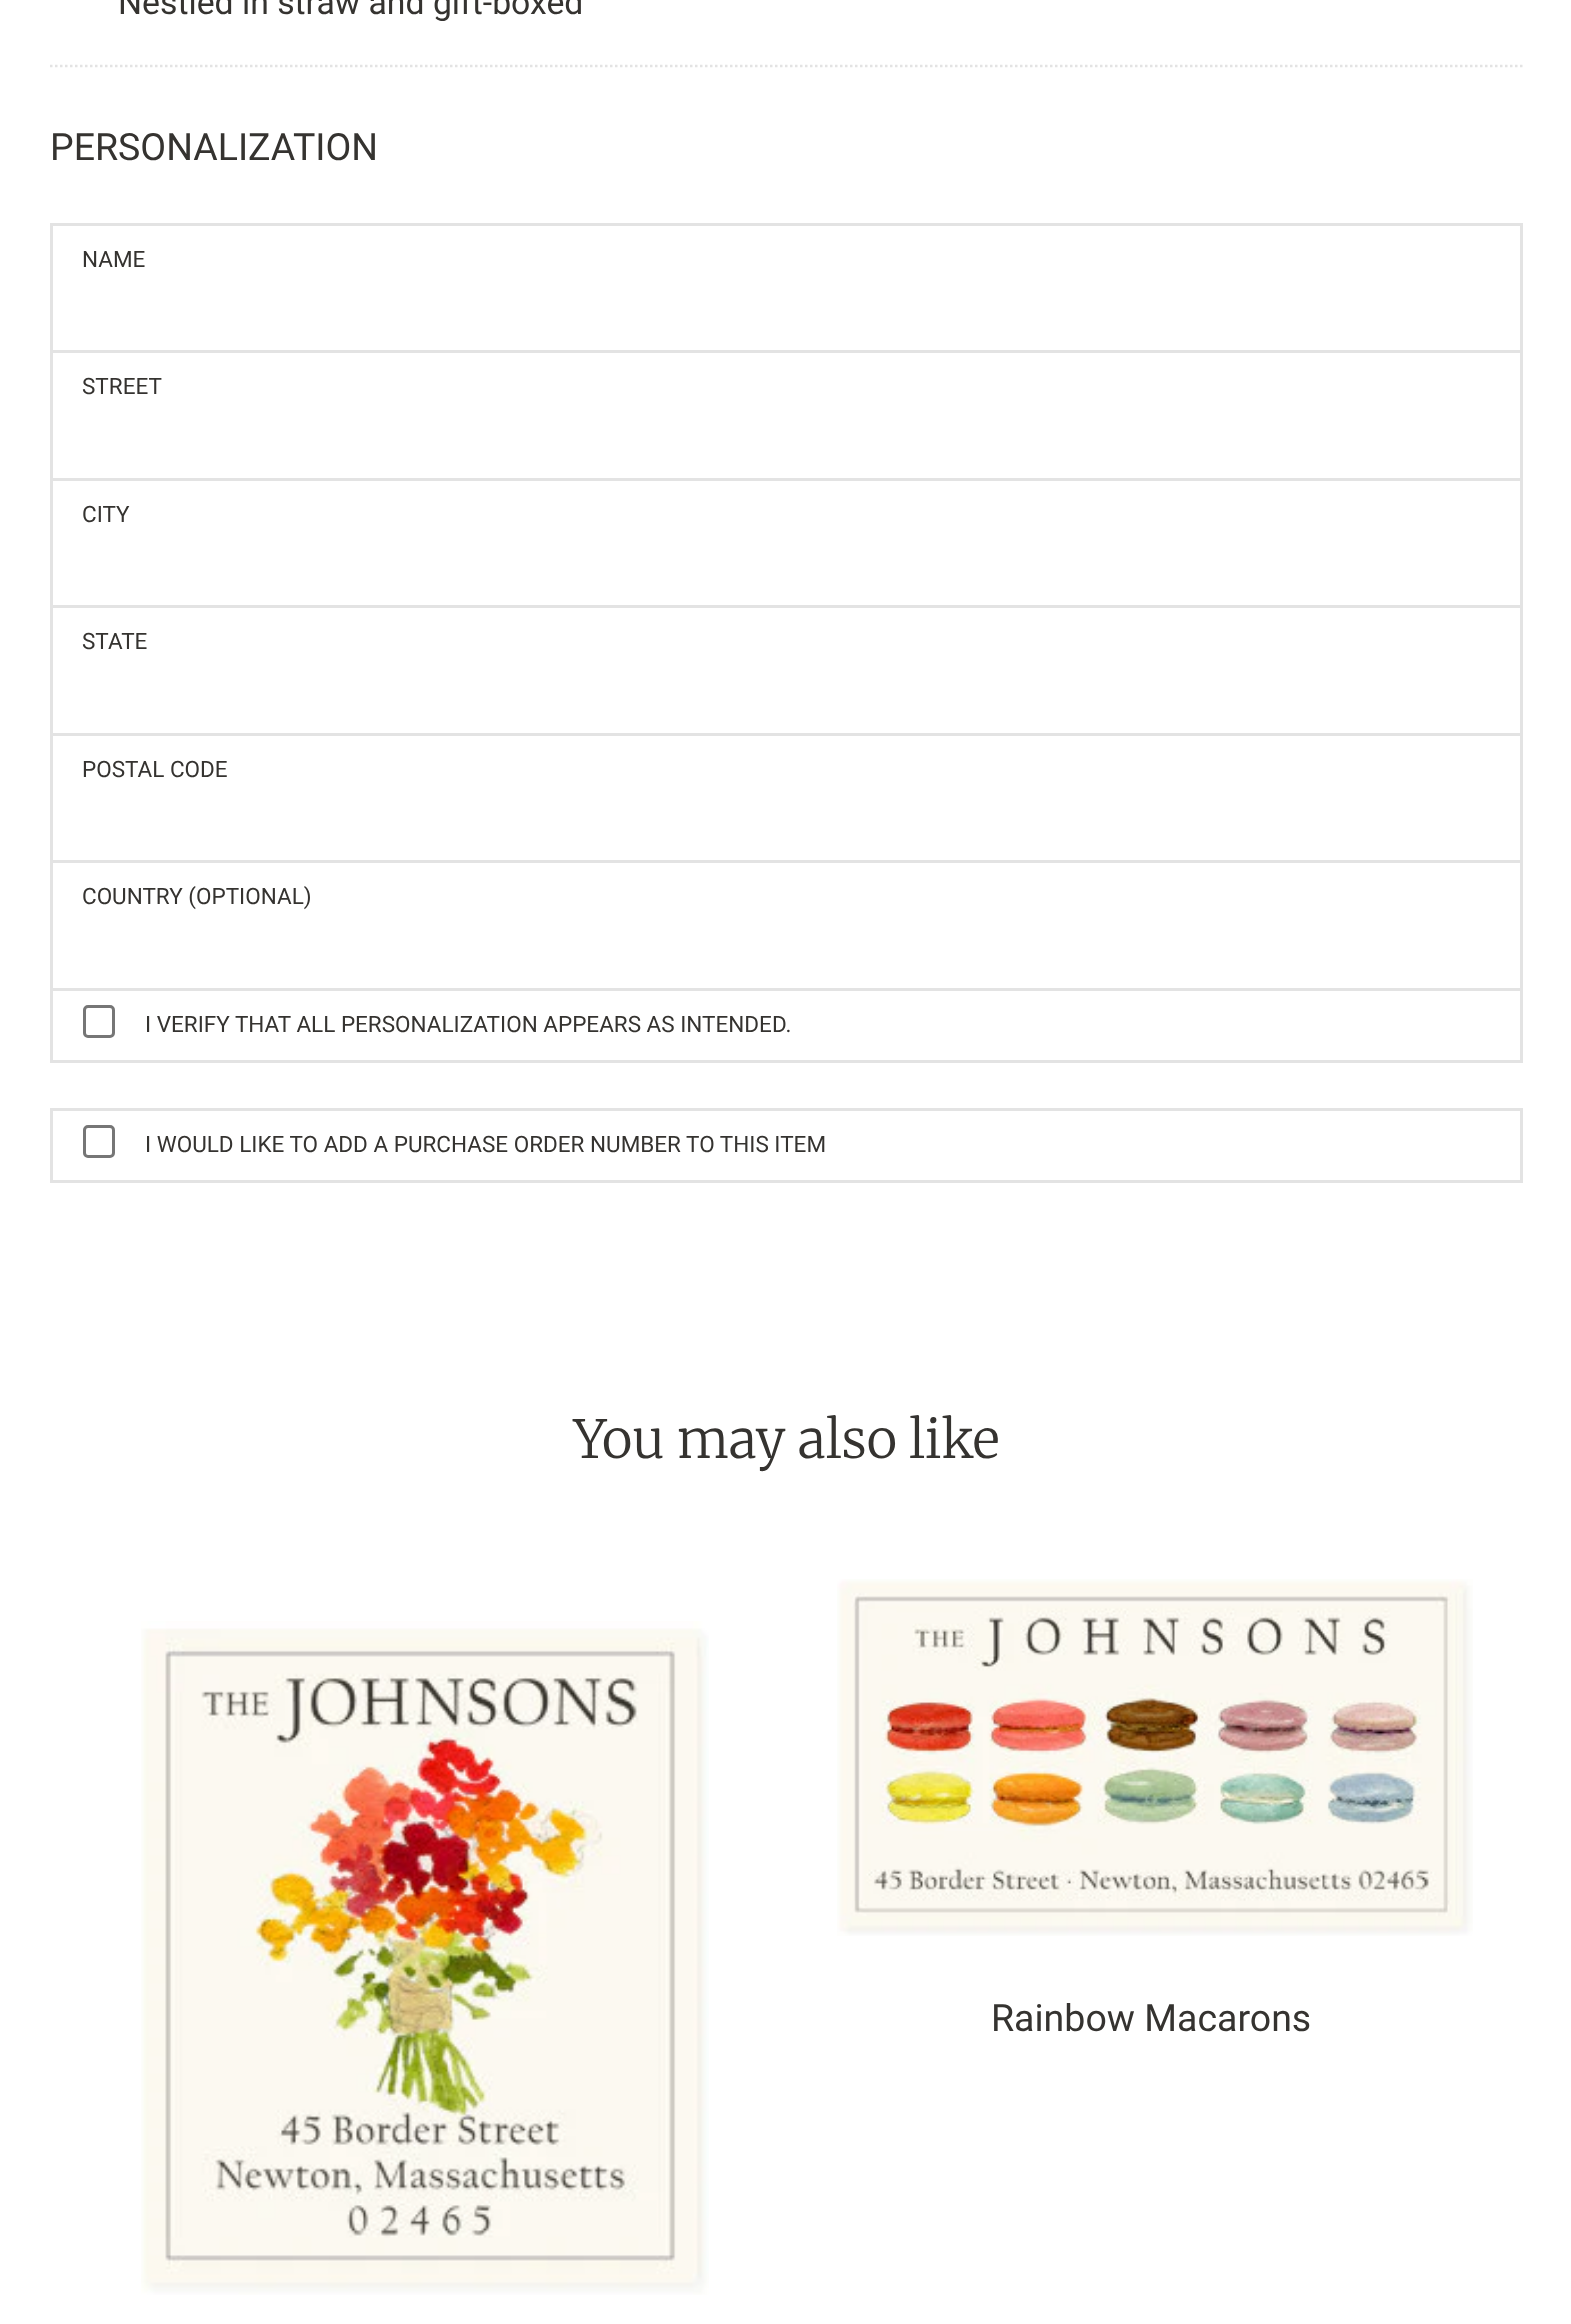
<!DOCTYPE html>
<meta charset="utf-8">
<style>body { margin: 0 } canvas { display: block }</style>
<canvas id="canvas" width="1571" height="2324"></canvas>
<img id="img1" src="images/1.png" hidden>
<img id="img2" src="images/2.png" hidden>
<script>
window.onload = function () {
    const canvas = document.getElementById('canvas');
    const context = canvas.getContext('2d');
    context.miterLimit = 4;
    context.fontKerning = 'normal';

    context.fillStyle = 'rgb(255, 255, 255)';
    context.fillRect(0, 0, 1571, 2324);
    context.beginPath();
    context.moveTo(50, 66);
    context.lineTo(1522.5, 66);
    context.strokeStyle = 'rgb(227, 227, 227)';
    context.lineWidth = 2.5;
    context.setLineDash([2.5, 2.5]);
    context.stroke();
    context.lineWidth = 3;
    context.setLineDash([]);
    context.strokeRect(51.5, 224.5, 1470, 837);
    context.fillStyle = 'rgb(227, 227, 227)';
    context.fillRect(53, 350, 1467, 3);
    context.fillRect(53, 478, 1467, 3);
    context.fillRect(53, 605, 1467, 3);
    context.fillRect(53, 733, 1467, 3);
    context.fillRect(53, 860, 1467, 3);
    context.fillRect(53, 988, 1467, 3);
    context.beginPath();
    context.roundRect(84.5, 1006.5, 29, 30, 3.5);
    context.strokeStyle = 'rgb(118, 118, 118)';
    context.stroke();
    context.strokeStyle = 'rgb(227, 227, 227)';
    context.strokeRect(51.5, 1109.5, 1470, 72);
    context.beginPath();
    context.roundRect(84.5, 1126.5, 29, 30, 3.5);
    context.strokeStyle = 'rgb(118, 118, 118)';
    context.stroke();
    context.drawImage(document.getElementById('img1'), 141, 1621, 568, 674);
    context.drawImage(document.getElementById('img2'), 837, 1579, 636, 357);
    context.font = '33.75px Roboto';
    context.fillStyle = 'rgb(53, 51, 48)';
    context.fillText('Nestled in straw and gift-boxed', 118, 14);
    context.font = '37.5px Roboto';
    context.fillText('PERSONALIZATION', 50, 160);
    context.font = '22.5px Roboto';
    context.fillText('NAME', 82, 267);
    context.fillText('STREET', 82, 394);
    context.fillText('CITY', 82, 522);
    context.fillText('STATE', 82, 649);
    context.fillText('POSTAL CODE', 82, 777);
    context.fillText('COUNTRY (OPTIONAL)', 82, 904);
    context.fillText('I VERIFY THAT ALL PERSONALIZATION APPEARS AS INTENDED.', 145, 1032);
    context.fillText('I WOULD LIKE TO ADD A PURCHASE ORDER NUMBER TO THIS ITEM', 145, 1152);
    context.font = '300 52.5px Merriweather';
    context.fillText('You may also like', 573, 1458);
    context.font = '37.5px Roboto';
    context.fillText('Rainbow Macarons', 991, 2031);
};
</script>
